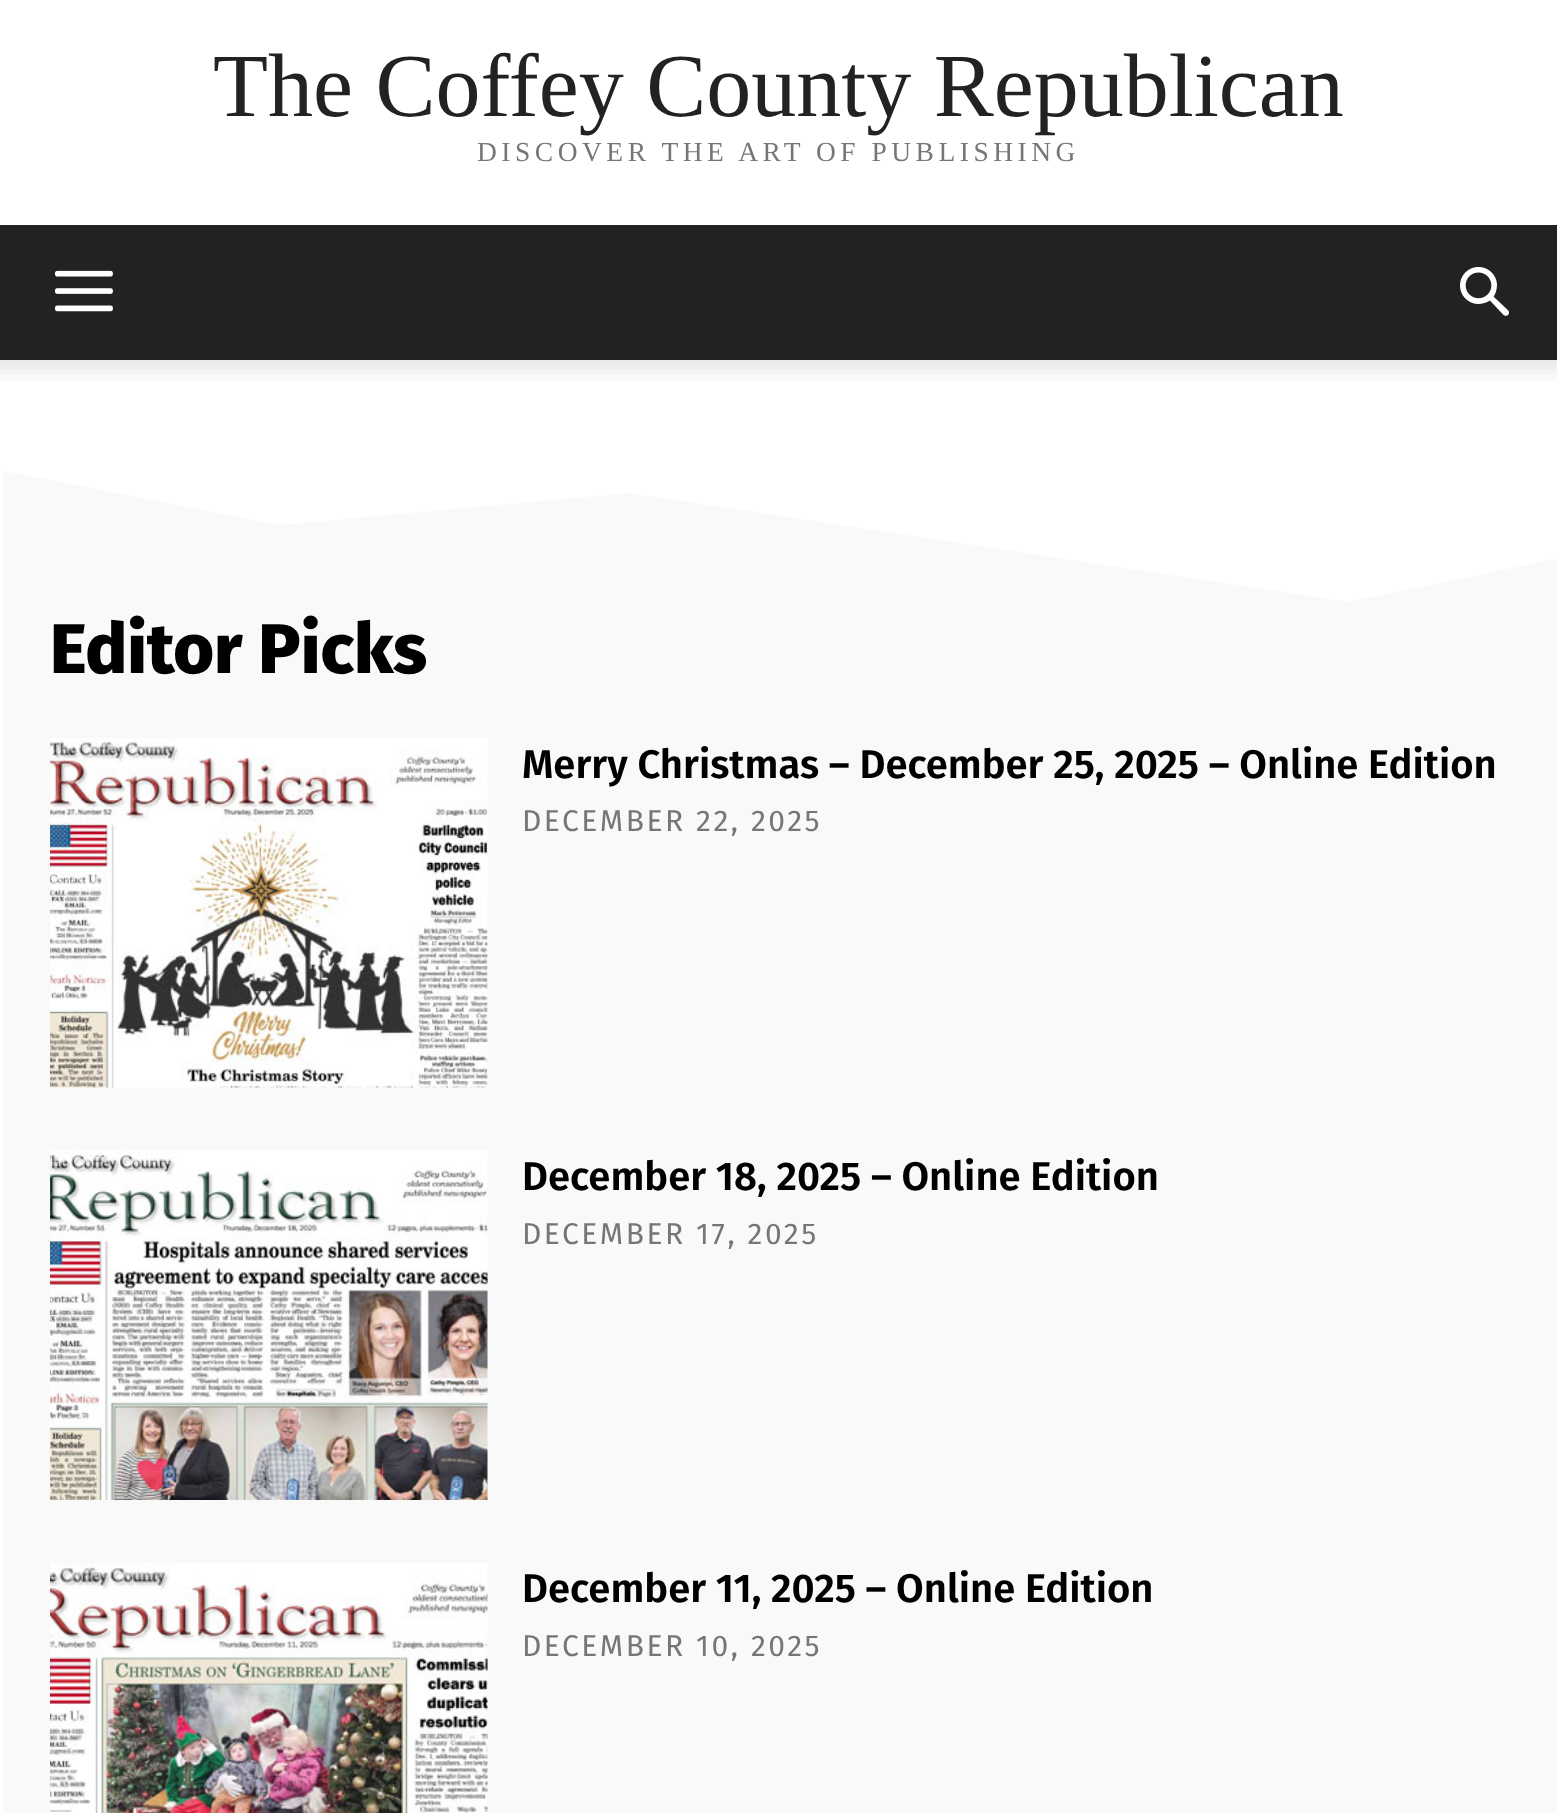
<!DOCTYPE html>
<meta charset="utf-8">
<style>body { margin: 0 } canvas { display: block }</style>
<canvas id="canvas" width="1557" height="1813"></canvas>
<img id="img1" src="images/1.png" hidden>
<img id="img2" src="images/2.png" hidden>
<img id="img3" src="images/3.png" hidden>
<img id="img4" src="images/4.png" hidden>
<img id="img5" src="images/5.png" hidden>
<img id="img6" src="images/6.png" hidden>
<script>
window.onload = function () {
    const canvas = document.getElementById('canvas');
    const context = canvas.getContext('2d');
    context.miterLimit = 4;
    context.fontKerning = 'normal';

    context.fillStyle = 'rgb(255, 255, 255)';
    context.fillRect(0, 0, 1557, 1813);
    context.fillStyle = 'rgb(34, 34, 34)';
    context.fillRect(0, 225, 1557, 135);
    context.drawImage(document.getElementById('img1'), 55, 270, 58, 42);
    context.drawImage(document.getElementById('img2'), 1460, 267, 49, 49);
    context.drawImage(document.getElementById('img3'), 0, 360, 1557, 21);
    context.save();
    context.beginPath();
    context.rect(3, 360, 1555, 250);
    context.clip();
    context.fillStyle = 'rgb(249, 249, 249)';
    context.beginPath();
    context.moveTo(-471, 685);
    context.lineTo(-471, 482);
    context.lineTo(-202, 431);
    context.lineTo(280, 525);
    context.lineTo(629, 493);
    context.lineTo(1349, 602);
    context.lineTo(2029, 460);
    context.lineTo(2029, 685);
    context.closePath();
    context.fill();
    context.restore();
    context.fillStyle = 'rgb(249, 249, 249)';
    context.fillRect(3, 610, 1554, 1203);
    context.drawImage(document.getElementById('img4'), 50, 738, 438, 350);
    context.drawImage(document.getElementById('img5'), 50, 1150, 438, 350);
    context.drawImage(document.getElementById('img6'), 50, 1563, 438, 250);
    context.font = '90px Liberation Serif';
    context.fillStyle = 'rgb(34, 34, 34)';
    context.fillText('The Coffey County Republican', 213, 116);
    context.letterSpacing = '4.5px';
    context.font = '27.5px Liberation Serif';
    context.fillStyle = 'rgb(118, 118, 118)';
    context.fillText('DISCOVER THE ART OF PUBLISHING', 477, 161);
    context.letterSpacing = '0px';
    context.font = '800 70px Fira Sans';
    context.fillStyle = 'rgb(0, 0, 0)';
    context.fillText('Editor Picks', 50, 673);
    context.font = '600 40px Fira Sans';
    context.fillText('Merry Christmas – December 25, 2025 – Online Edition', 522, 778);
    context.letterSpacing = '2.5px';
    context.font = '30px Fira Sans';
    context.fillStyle = 'rgb(118, 118, 118)';
    context.fillText('DECEMBER 22, 2025', 522, 831);
    context.letterSpacing = '0px';
    context.font = '600 40px Fira Sans';
    context.fillStyle = 'rgb(0, 0, 0)';
    context.fillText('December 18, 2025 – Online Edition', 522, 1190);
    context.letterSpacing = '2.5px';
    context.font = '30px Fira Sans';
    context.fillStyle = 'rgb(118, 118, 118)';
    context.fillText('DECEMBER 17, 2025', 522, 1244);
    context.letterSpacing = '0px';
    context.font = '600 40px Fira Sans';
    context.fillStyle = 'rgb(0, 0, 0)';
    context.fillText('December 11, 2025 – Online Edition', 522, 1602);
    context.letterSpacing = '2.5px';
    context.font = '30px Fira Sans';
    context.fillStyle = 'rgb(118, 118, 118)';
    context.fillText('DECEMBER 10, 2025', 522, 1656);
};
</script>
